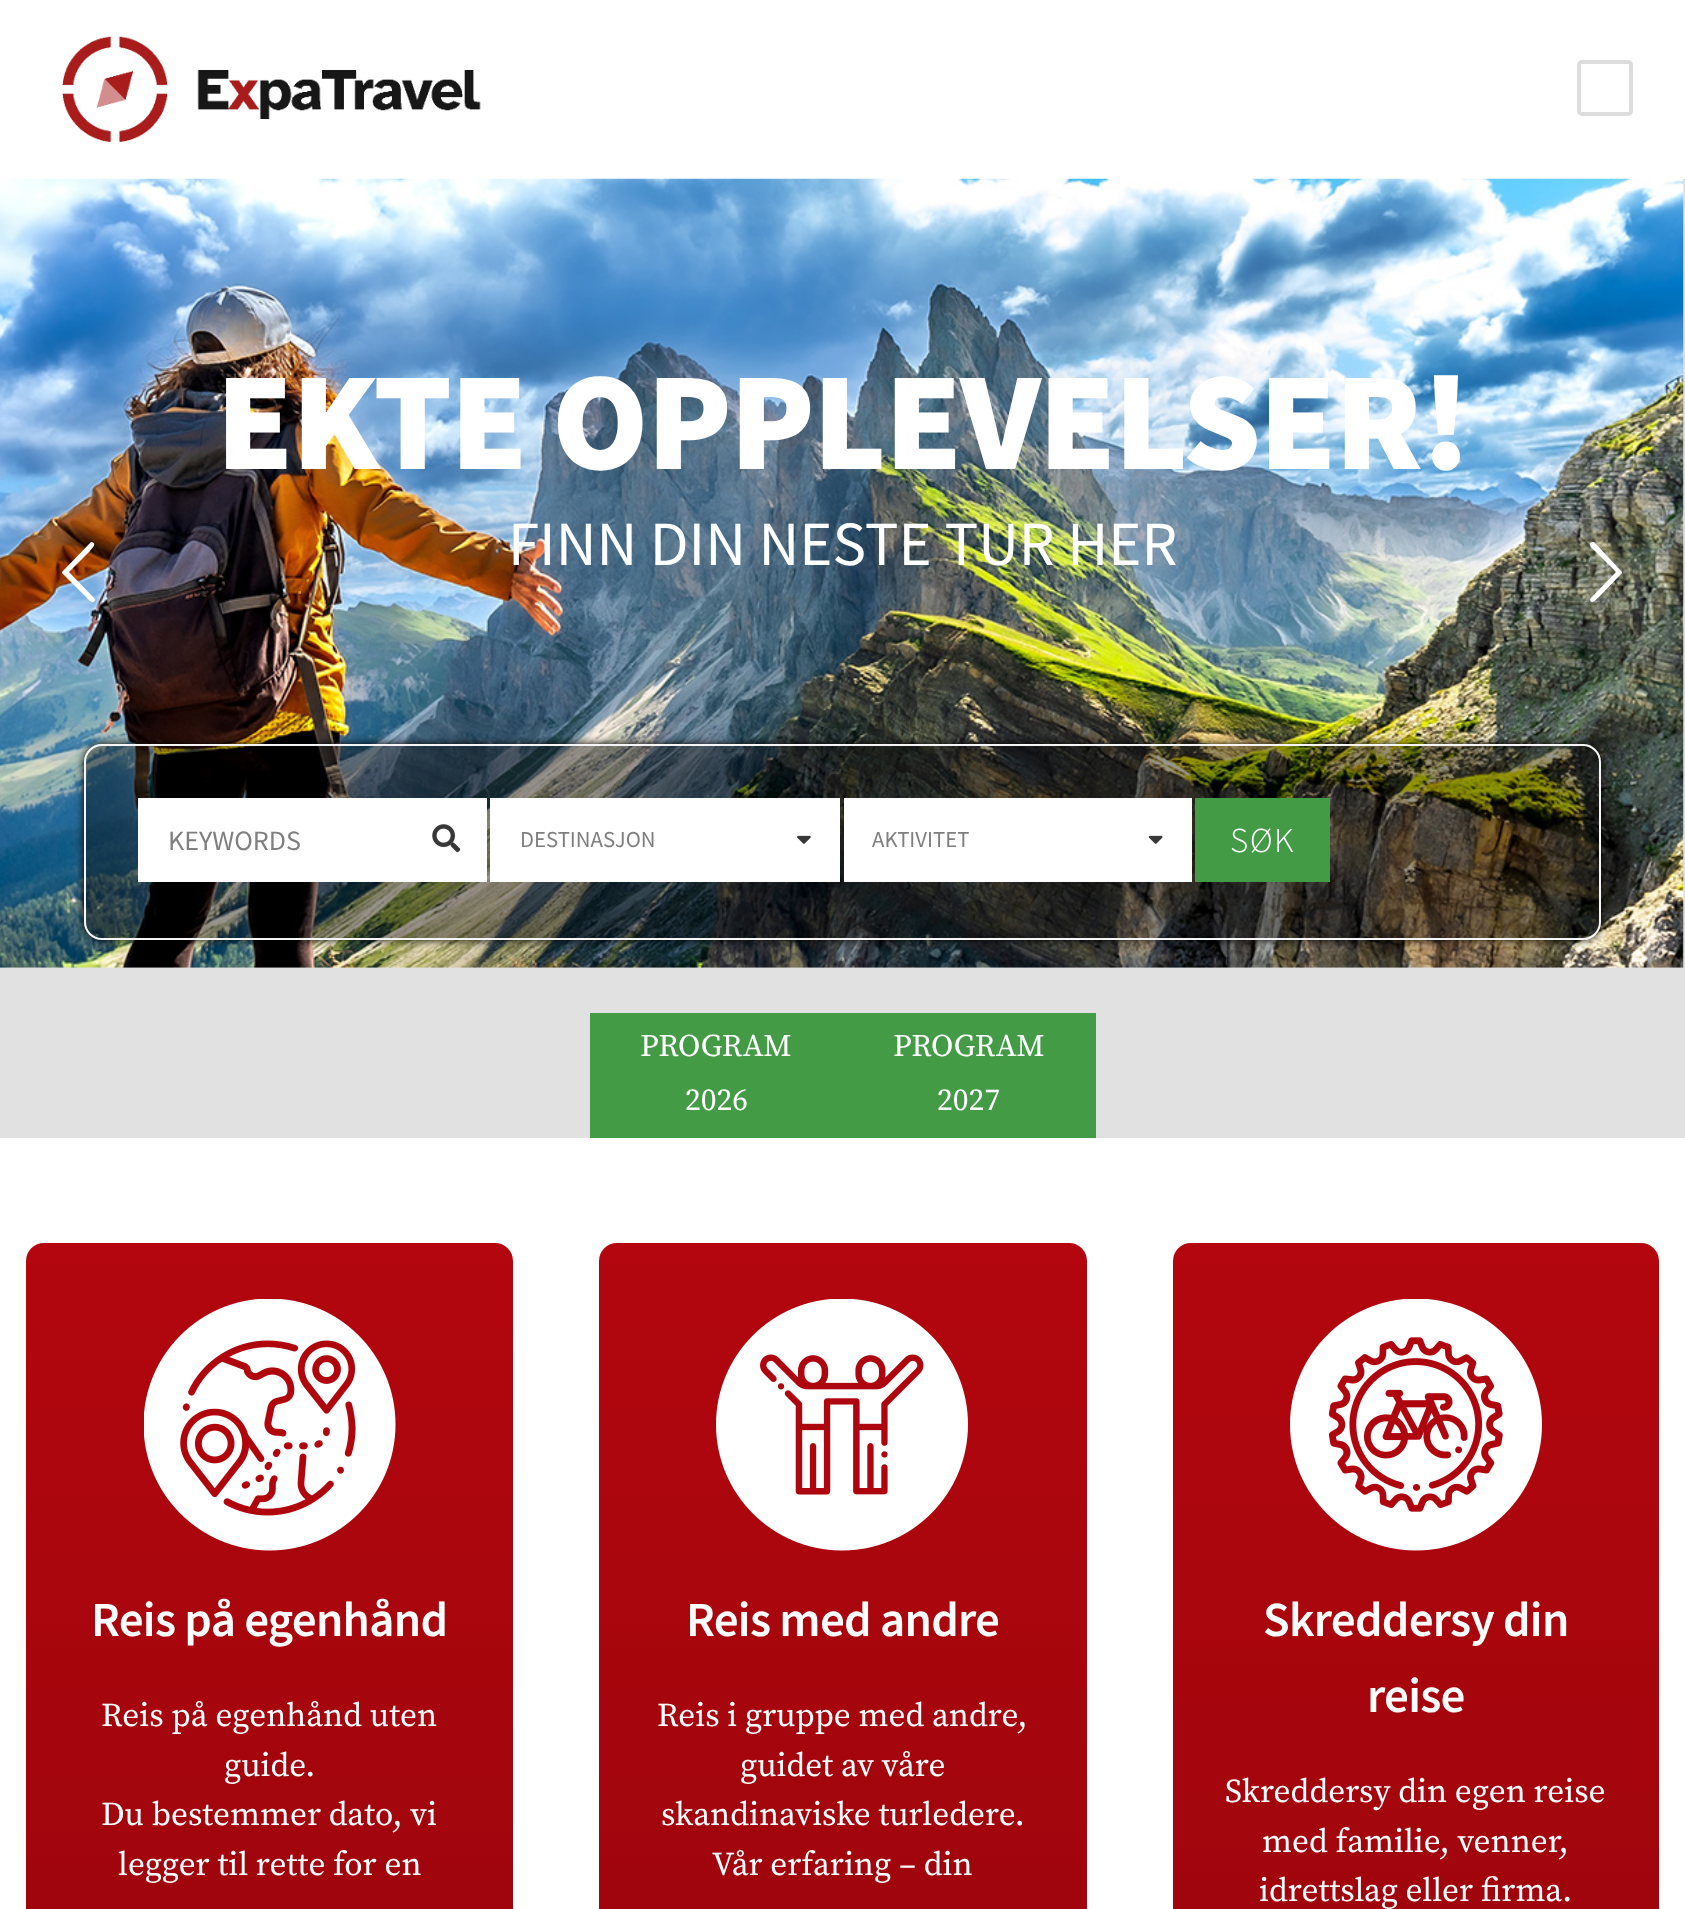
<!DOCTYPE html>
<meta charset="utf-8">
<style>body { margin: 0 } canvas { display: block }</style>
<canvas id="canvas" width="1685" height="1909"></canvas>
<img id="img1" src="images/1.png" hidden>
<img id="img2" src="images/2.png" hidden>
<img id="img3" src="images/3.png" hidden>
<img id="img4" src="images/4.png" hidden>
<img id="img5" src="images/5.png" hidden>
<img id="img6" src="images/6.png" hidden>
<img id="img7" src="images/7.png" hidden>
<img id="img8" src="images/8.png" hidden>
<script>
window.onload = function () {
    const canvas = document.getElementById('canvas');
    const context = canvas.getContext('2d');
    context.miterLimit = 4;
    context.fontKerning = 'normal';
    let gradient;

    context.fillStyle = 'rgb(255, 255, 255)';
    context.fillRect(0, 0, 1685, 1909);
    context.drawImage(document.getElementById('img1'), 62, 36, 419, 106);
    context.beginPath();
    context.roundRect(1579, 62, 52, 52, 3);
    context.strokeStyle = 'rgb(221, 221, 221)';
    context.lineWidth = 4;
    context.stroke();
    context.fillStyle = 'rgb(225, 225, 225)';
    context.fillRect(0, 179, 1685, 959);
    context.drawImage(document.getElementById('img2'), 0, 178, 1684, 790);
    context.fillStyle = 'rgb(255, 255, 255)';
    context.beginPath();
    context.moveTo(94, 598);
    context.lineTo(95, 600);
    context.bezierCurveTo(93, 606, 86, 597, 86, 597);
    context.lineTo(62, 573);
    context.lineTo(62, 572);
    context.lineTo(91, 542);
    context.lineTo(92, 542);
    context.bezierCurveTo(98, 544, 90, 550, 90, 551);
    context.lineTo(69, 572);
    context.closePath();
    context.fill();
    context.beginPath();
    context.moveTo(1591, 598);
    context.lineTo(1616, 572);
    context.lineTo(1595, 551);
    context.bezierCurveTo(1594, 550, 1586, 544, 1592, 542);
    context.lineTo(1594, 542);
    context.lineTo(1622, 572);
    context.lineTo(1622, 573);
    context.lineTo(1599, 597);
    context.bezierCurveTo(1598, 597, 1592, 606, 1590, 600);
    context.closePath();
    context.fill();
    context.save();
    context.beginPath();
    context.moveTo(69, 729);
    context.lineTo(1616, 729);
    context.lineTo(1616, 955);
    context.lineTo(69, 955);
    context.closePath();
    context.moveTo(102, 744);
    context.lineTo(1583, 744);
    context.bezierCurveTo(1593, 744, 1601, 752, 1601, 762);
    context.lineTo(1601, 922);
    context.bezierCurveTo(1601, 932, 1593, 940, 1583, 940);
    context.lineTo(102, 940);
    context.bezierCurveTo(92, 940, 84, 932, 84, 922);
    context.lineTo(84, 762);
    context.bezierCurveTo(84, 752, 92, 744, 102, 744);
    context.closePath();
    context.clip('evenodd');
    context.fillStyle = 'rgb(0, 0, 0)';
    context.filter = 'blur(4.5px)';
    context.beginPath();
    context.roundRect(84, 744, 1517, 196, 18);
    context.fill();
    context.filter = 'none';
    context.restore();
    context.fillStyle = 'rgba(0, 0, 0, 0.4)';
    context.beginPath();
    context.roundRect(85, 745, 1515, 194, 17);
    context.fill();
    context.strokeStyle = 'rgb(245, 245, 245)';
    context.lineWidth = 2;
    context.stroke();
    context.fillStyle = 'rgb(255, 255, 255)';
    context.fillRect(138, 798, 349, 84);
    context.drawImage(document.getElementById('img3'), 432, 824, 29, 29);
    context.fillRect(490, 798, 350, 84);
    context.drawImage(document.getElementById('img4'), 797, 835, 14, 9);
    context.fillRect(844, 798, 348, 84);
    context.drawImage(document.getElementById('img5'), 1148, 835, 15, 9);
    context.fillStyle = 'rgb(68, 155, 69)';
    context.fillRect(1195, 798, 135, 84);
    context.fillRect(590, 1013, 506, 125);
    gradient = context.createLinearGradient(269, 1243, 270, 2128);
    gradient.addColorStop(0, 'rgb(179, 6, 14)');
    gradient.addColorStop(1, 'rgb(154, 5, 12)');
    context.fillStyle = gradient;
    context.beginPath();
    context.roundRect(26, 1243, 487, 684, 18);
    context.fill();
    context.drawImage(document.getElementById('img6'), 144, 1299, 252, 252);
    gradient = context.createLinearGradient(843, 1243, 843, 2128);
    gradient.addColorStop(0, 'rgb(179, 6, 14)');
    gradient.addColorStop(1, 'rgb(154, 5, 12)');
    context.fillStyle = gradient;
    context.beginPath();
    context.roundRect(599, 1243, 488, 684, 18);
    context.fill();
    context.drawImage(document.getElementById('img7'), 716, 1299, 252, 252);
    gradient = context.createLinearGradient(1416, 1243, 1416, 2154);
    gradient.addColorStop(0, 'rgb(179, 6, 14)');
    gradient.addColorStop(1, 'rgb(154, 5, 12)');
    context.fillStyle = gradient;
    context.beginPath();
    context.roundRect(1173, 1243, 486, 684, 18);
    context.fill();
    context.drawImage(document.getElementById('img8'), 1290, 1299, 252, 252);
    context.letterSpacing = '-2.1px';
    context.font = '900 140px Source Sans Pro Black';
    context.fillStyle = 'rgb(255, 255, 255)';
    context.fillText('EKTE OPPLEVELSER!', 216, 469);
    context.letterSpacing = '0px';
    context.font = '63px Source Sans Pro';
    context.fillText('FINN DIN NESTE TUR HER', 508, 565);
    context.font = '28px Source Sans Pro';
    context.fillStyle = 'rgb(127, 127, 127)';
    context.fillText('KEYWORDS', 168, 850);
    context.font = '22.75px Source Sans Pro';
    context.fillText('DESTINASJON', 520, 847);
    context.fillText('AKTIVITET', 872, 847);
    context.letterSpacing = '1.5px';
    context.font = '300 35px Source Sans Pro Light';
    context.fillStyle = 'rgb(255, 255, 255)';
    context.fillText('SØK', 1230, 852);
    context.letterSpacing = '0px';
    context.font = '31.5px Source Serif Pro';
    context.fillText('PROGRAM', 640, 1056);
    context.fillText('2026', 685, 1110);
    context.fillText('PROGRAM', 893, 1056);
    context.fillText('2027', 937, 1110);
    context.letterSpacing = '-0.75px';
    context.font = '600 49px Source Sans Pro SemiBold';
    context.fillText('Reis på egenhånd', 91, 1636);
    context.letterSpacing = '0px';
    context.font = '33.25px Source Serif Pro';
    context.fillText('Reis på egenhånd uten', 101, 1726);
    context.fillText('guide.', 224, 1776);
    context.fillText('Du bestemmer dato, vi', 101, 1825);
    context.fillText('legger til rette for en', 118, 1875);
    context.letterSpacing = '-0.75px';
    context.font = '600 49px Source Sans Pro SemiBold';
    context.fillText('Reis med andre', 686, 1636);
    context.letterSpacing = '0px';
    context.font = '33.25px Source Serif Pro';
    context.fillText('Reis i gruppe med andre,', 657, 1726);
    context.fillText('guidet av våre', 740, 1776);
    context.fillText('skandinaviske turledere.', 661, 1825);
    context.fillText('Vår erfaring – din', 712, 1875);
    context.letterSpacing = '-0.75px';
    context.font = '600 49px Source Sans Pro SemiBold';
    context.fillText('Skreddersy din', 1263, 1636);
    context.fillText('reise', 1367, 1712);
    context.letterSpacing = '0px';
    context.font = '33.25px Source Serif Pro';
    context.fillText('Skreddersy din egen reise', 1225, 1802);
    context.fillText('med familie, venner,', 1262, 1852);
    context.fillText('idrettslag eller firma.', 1259, 1901);
};
</script>
